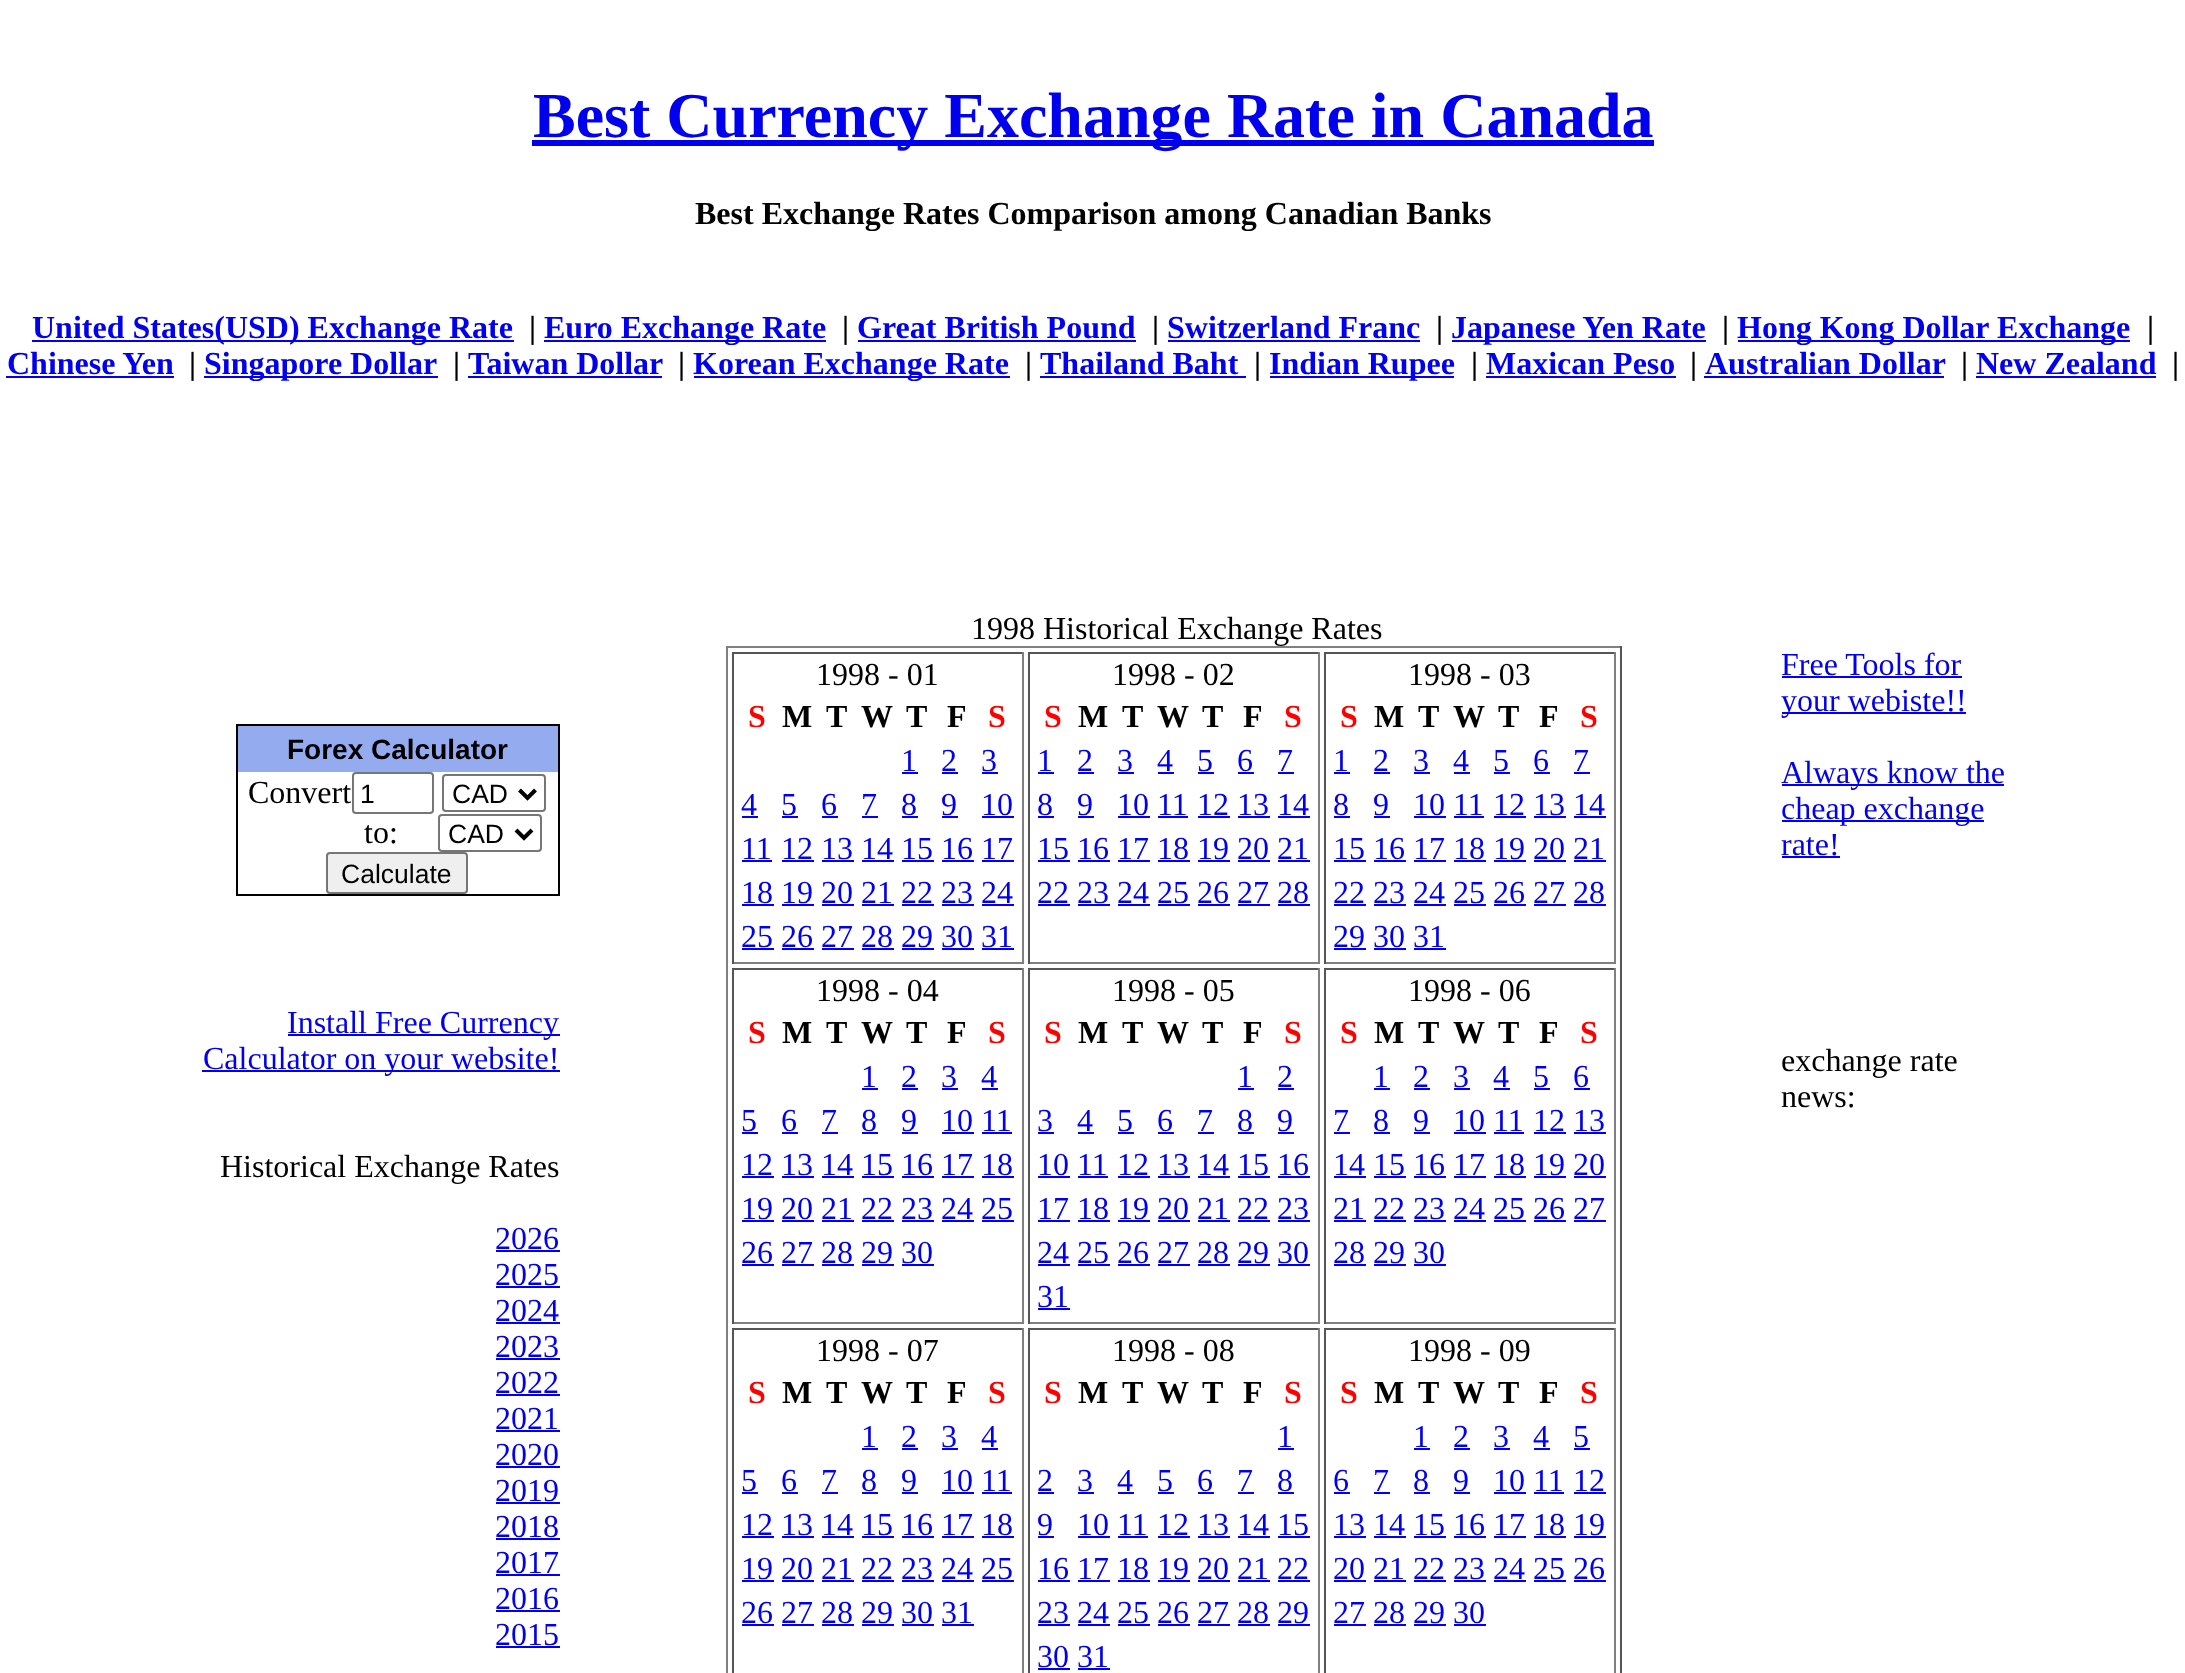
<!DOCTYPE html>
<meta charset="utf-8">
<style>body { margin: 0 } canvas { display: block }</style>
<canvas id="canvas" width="2185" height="1673"></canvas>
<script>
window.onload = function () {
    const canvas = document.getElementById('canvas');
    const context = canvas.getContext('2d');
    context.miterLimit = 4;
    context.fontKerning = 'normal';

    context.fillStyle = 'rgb(255, 255, 255)';
    context.fillRect(0, 0, 2185, 1673);
    context.fillStyle = 'rgb(0, 0, 238)';
    context.fillRect(532, 140, 1122, 6);
    context.fillRect(32, 340, 482, 2);
    context.fillRect(544, 340, 282, 2);
    context.fillRect(858, 340, 278, 2);
    context.fillRect(1168, 340, 252, 2);
    context.fillRect(1452, 340, 254, 2);
    context.fillRect(1738, 340, 392, 2);
    context.fillRect(6, 376, 168, 2);
    context.fillRect(204, 376, 234, 2);
    context.fillRect(468, 376, 194, 2);
    context.fillRect(694, 376, 316, 2);
    context.fillRect(1040, 376, 206, 2);
    context.fillRect(1270, 376, 184, 2);
    context.fillRect(1486, 376, 190, 2);
    context.fillRect(1704, 376, 240, 2);
    context.fillRect(1976, 376, 180, 2);
    context.strokeStyle = 'rgb(0, 0, 0)';
    context.lineWidth = 2;
    context.strokeRect(237, 725, 322, 170);
    context.fillStyle = 'rgb(148, 171, 240)';
    context.fillRect(238, 726, 320, 46);
    context.beginPath();
    context.roundRect(353, 773, 80, 40, 3);
    context.strokeStyle = 'rgb(118, 118, 118)';
    context.stroke();
    context.beginPath();
    context.roundRect(443, 775, 102, 36, 3);
    context.stroke();
    context.beginPath();
    context.moveTo(519.5, 790);
    context.lineTo(527.5, 798);
    context.lineTo(535.5, 790);
    context.strokeStyle = 'rgb(0, 0, 0)';
    context.lineWidth = 4;
    context.stroke();
    context.beginPath();
    context.roundRect(439, 815, 102, 36, 3);
    context.strokeStyle = 'rgb(118, 118, 118)';
    context.lineWidth = 2;
    context.stroke();
    context.beginPath();
    context.moveTo(516, 830);
    context.lineTo(524, 838);
    context.lineTo(532, 830);
    context.strokeStyle = 'rgb(0, 0, 0)';
    context.lineWidth = 4;
    context.stroke();
    context.fillStyle = 'rgb(239, 239, 239)';
    context.beginPath();
    context.roundRect(327, 853, 140, 40, 3);
    context.fill();
    context.strokeStyle = 'rgb(118, 118, 118)';
    context.lineWidth = 2;
    context.stroke();
    context.fillStyle = 'rgb(0, 0, 238)';
    context.fillRect(288, 1034, 272, 2);
    context.fillRect(202, 1070, 358, 2);
    context.fillRect(496, 1250, 64, 2);
    context.fillRect(496, 1286, 64, 2);
    context.fillRect(496, 1322, 64, 2);
    context.fillRect(496, 1358, 64, 2);
    context.fillRect(496, 1394, 64, 2);
    context.fillRect(496, 1430, 64, 2);
    context.fillRect(496, 1466, 64, 2);
    context.fillRect(496, 1502, 64, 2);
    context.fillRect(496, 1538, 64, 2);
    context.fillRect(496, 1574, 64, 2);
    context.fillRect(496, 1610, 64, 2);
    context.fillRect(496, 1646, 64, 2);
    context.fillStyle = 'rgb(128, 128, 128)';
    context.fillRect(726, 646, 896, 2);
    context.fillStyle = 'rgb(85, 85, 85)';
    context.fillRect(1620, 646, 2, 1027);
    context.fillStyle = 'rgb(128, 128, 128)';
    context.fillRect(726, 646, 2, 1027);
    context.fillStyle = 'rgb(85, 85, 85)';
    context.fillRect(732, 652, 292, 2);
    context.fillStyle = 'rgb(128, 128, 128)';
    context.fillRect(1022, 652, 2, 312);
    context.fillRect(732, 962, 292, 2);
    context.fillStyle = 'rgb(85, 85, 85)';
    context.fillRect(732, 652, 2, 312);
    context.fillStyle = 'rgb(0, 0, 238)';
    context.fillRect(902, 772, 16, 2);
    context.fillRect(942, 772, 16, 2);
    context.fillRect(982, 772, 16, 2);
    context.fillRect(742, 816, 16, 2);
    context.fillRect(782, 816, 16, 2);
    context.fillRect(822, 816, 16, 2);
    context.fillRect(862, 816, 16, 2);
    context.fillRect(902, 816, 16, 2);
    context.fillRect(942, 816, 16, 2);
    context.fillRect(982, 816, 32, 2);
    context.fillRect(742, 860, 30, 2);
    context.fillRect(782, 860, 32, 2);
    context.fillRect(822, 860, 32, 2);
    context.fillRect(862, 860, 32, 2);
    context.fillRect(902, 860, 32, 2);
    context.fillRect(942, 860, 32, 2);
    context.fillRect(982, 860, 32, 2);
    context.fillRect(742, 904, 32, 2);
    context.fillRect(782, 904, 32, 2);
    context.fillRect(822, 904, 32, 2);
    context.fillRect(862, 904, 32, 2);
    context.fillRect(902, 904, 32, 2);
    context.fillRect(942, 904, 32, 2);
    context.fillRect(982, 904, 32, 2);
    context.fillRect(742, 948, 32, 2);
    context.fillRect(782, 948, 32, 2);
    context.fillRect(822, 948, 32, 2);
    context.fillRect(862, 948, 32, 2);
    context.fillRect(902, 948, 32, 2);
    context.fillRect(942, 948, 32, 2);
    context.fillRect(982, 948, 32, 2);
    context.fillStyle = 'rgb(85, 85, 85)';
    context.fillRect(1028, 652, 292, 2);
    context.fillStyle = 'rgb(128, 128, 128)';
    context.fillRect(1318, 652, 2, 312);
    context.fillRect(1028, 962, 292, 2);
    context.fillStyle = 'rgb(85, 85, 85)';
    context.fillRect(1028, 652, 2, 312);
    context.fillStyle = 'rgb(0, 0, 238)';
    context.fillRect(1038, 772, 16, 2);
    context.fillRect(1078, 772, 16, 2);
    context.fillRect(1118, 772, 16, 2);
    context.fillRect(1158, 772, 16, 2);
    context.fillRect(1198, 772, 16, 2);
    context.fillRect(1238, 772, 16, 2);
    context.fillRect(1278, 772, 16, 2);
    context.fillRect(1038, 816, 16, 2);
    context.fillRect(1078, 816, 16, 2);
    context.fillRect(1118, 816, 32, 2);
    context.fillRect(1198, 816, 32, 2);
    context.fillRect(1158, 816, 30, 2);
    context.fillRect(1238, 816, 32, 2);
    context.fillRect(1278, 816, 32, 2);
    context.fillRect(1038, 860, 32, 2);
    context.fillRect(1078, 860, 32, 2);
    context.fillRect(1118, 860, 32, 2);
    context.fillRect(1158, 860, 32, 2);
    context.fillRect(1198, 860, 32, 2);
    context.fillRect(1238, 860, 32, 2);
    context.fillRect(1278, 860, 32, 2);
    context.fillRect(1038, 904, 32, 2);
    context.fillRect(1078, 904, 32, 2);
    context.fillRect(1118, 904, 32, 2);
    context.fillRect(1158, 904, 32, 2);
    context.fillRect(1198, 904, 32, 2);
    context.fillRect(1238, 904, 32, 2);
    context.fillRect(1278, 904, 32, 2);
    context.fillStyle = 'rgb(85, 85, 85)';
    context.fillRect(1324, 652, 292, 2);
    context.fillStyle = 'rgb(128, 128, 128)';
    context.fillRect(1614, 652, 2, 312);
    context.fillRect(1324, 962, 292, 2);
    context.fillStyle = 'rgb(85, 85, 85)';
    context.fillRect(1324, 652, 2, 312);
    context.fillStyle = 'rgb(0, 0, 238)';
    context.fillRect(1334, 772, 16, 2);
    context.fillRect(1374, 772, 16, 2);
    context.fillRect(1414, 772, 16, 2);
    context.fillRect(1454, 772, 16, 2);
    context.fillRect(1494, 772, 16, 2);
    context.fillRect(1534, 772, 16, 2);
    context.fillRect(1574, 772, 16, 2);
    context.fillRect(1334, 816, 16, 2);
    context.fillRect(1374, 816, 16, 2);
    context.fillRect(1414, 816, 32, 2);
    context.fillRect(1494, 816, 32, 2);
    context.fillRect(1454, 816, 30, 2);
    context.fillRect(1534, 816, 32, 2);
    context.fillRect(1574, 816, 32, 2);
    context.fillRect(1334, 860, 32, 2);
    context.fillRect(1374, 860, 32, 2);
    context.fillRect(1414, 860, 32, 2);
    context.fillRect(1454, 860, 32, 2);
    context.fillRect(1494, 860, 32, 2);
    context.fillRect(1534, 860, 32, 2);
    context.fillRect(1574, 860, 32, 2);
    context.fillRect(1334, 904, 32, 2);
    context.fillRect(1374, 904, 32, 2);
    context.fillRect(1414, 904, 32, 2);
    context.fillRect(1454, 904, 32, 2);
    context.fillRect(1494, 904, 32, 2);
    context.fillRect(1534, 904, 32, 2);
    context.fillRect(1574, 904, 32, 2);
    context.fillRect(1334, 948, 32, 2);
    context.fillRect(1374, 948, 32, 2);
    context.fillRect(1414, 948, 32, 2);
    context.fillStyle = 'rgb(85, 85, 85)';
    context.fillRect(732, 968, 292, 2);
    context.fillStyle = 'rgb(128, 128, 128)';
    context.fillRect(1022, 968, 2, 356);
    context.fillRect(732, 1322, 292, 2);
    context.fillStyle = 'rgb(85, 85, 85)';
    context.fillRect(732, 968, 2, 356);
    context.fillStyle = 'rgb(0, 0, 238)';
    context.fillRect(862, 1088, 16, 2);
    context.fillRect(902, 1088, 16, 2);
    context.fillRect(942, 1088, 16, 2);
    context.fillRect(982, 1088, 16, 2);
    context.fillRect(742, 1132, 16, 2);
    context.fillRect(782, 1132, 16, 2);
    context.fillRect(822, 1132, 16, 2);
    context.fillRect(862, 1132, 16, 2);
    context.fillRect(902, 1132, 16, 2);
    context.fillRect(942, 1132, 32, 2);
    context.fillRect(982, 1132, 30, 2);
    context.fillRect(742, 1176, 32, 2);
    context.fillRect(782, 1176, 32, 2);
    context.fillRect(822, 1176, 32, 2);
    context.fillRect(862, 1176, 32, 2);
    context.fillRect(902, 1176, 32, 2);
    context.fillRect(942, 1176, 32, 2);
    context.fillRect(982, 1176, 32, 2);
    context.fillRect(742, 1220, 32, 2);
    context.fillRect(782, 1220, 32, 2);
    context.fillRect(822, 1220, 32, 2);
    context.fillRect(862, 1220, 32, 2);
    context.fillRect(902, 1220, 32, 2);
    context.fillRect(942, 1220, 32, 2);
    context.fillRect(982, 1220, 32, 2);
    context.fillRect(742, 1264, 32, 2);
    context.fillRect(782, 1264, 32, 2);
    context.fillRect(822, 1264, 32, 2);
    context.fillRect(862, 1264, 32, 2);
    context.fillRect(902, 1264, 32, 2);
    context.fillStyle = 'rgb(85, 85, 85)';
    context.fillRect(1028, 968, 292, 2);
    context.fillStyle = 'rgb(128, 128, 128)';
    context.fillRect(1318, 968, 2, 356);
    context.fillRect(1028, 1322, 292, 2);
    context.fillStyle = 'rgb(85, 85, 85)';
    context.fillRect(1028, 968, 2, 356);
    context.fillStyle = 'rgb(0, 0, 238)';
    context.fillRect(1238, 1088, 16, 2);
    context.fillRect(1278, 1088, 16, 2);
    context.fillRect(1038, 1132, 16, 2);
    context.fillRect(1078, 1132, 16, 2);
    context.fillRect(1118, 1132, 16, 2);
    context.fillRect(1158, 1132, 16, 2);
    context.fillRect(1198, 1132, 16, 2);
    context.fillRect(1238, 1132, 16, 2);
    context.fillRect(1278, 1132, 16, 2);
    context.fillRect(1038, 1176, 32, 2);
    context.fillRect(1118, 1176, 32, 2);
    context.fillRect(1078, 1176, 30, 2);
    context.fillRect(1158, 1176, 32, 2);
    context.fillRect(1198, 1176, 32, 2);
    context.fillRect(1238, 1176, 32, 2);
    context.fillRect(1278, 1176, 32, 2);
    context.fillRect(1038, 1220, 32, 2);
    context.fillRect(1078, 1220, 32, 2);
    context.fillRect(1118, 1220, 32, 2);
    context.fillRect(1158, 1220, 32, 2);
    context.fillRect(1198, 1220, 32, 2);
    context.fillRect(1238, 1220, 32, 2);
    context.fillRect(1278, 1220, 32, 2);
    context.fillRect(1038, 1264, 32, 2);
    context.fillRect(1078, 1264, 32, 2);
    context.fillRect(1118, 1264, 32, 2);
    context.fillRect(1158, 1264, 32, 2);
    context.fillRect(1198, 1264, 32, 2);
    context.fillRect(1238, 1264, 32, 2);
    context.fillRect(1278, 1264, 32, 2);
    context.fillRect(1038, 1308, 32, 2);
    context.fillStyle = 'rgb(85, 85, 85)';
    context.fillRect(1324, 968, 292, 2);
    context.fillStyle = 'rgb(128, 128, 128)';
    context.fillRect(1614, 968, 2, 356);
    context.fillRect(1324, 1322, 292, 2);
    context.fillStyle = 'rgb(85, 85, 85)';
    context.fillRect(1324, 968, 2, 356);
    context.fillStyle = 'rgb(0, 0, 238)';
    context.fillRect(1374, 1088, 16, 2);
    context.fillRect(1414, 1088, 16, 2);
    context.fillRect(1454, 1088, 16, 2);
    context.fillRect(1494, 1088, 16, 2);
    context.fillRect(1534, 1088, 16, 2);
    context.fillRect(1574, 1088, 16, 2);
    context.fillRect(1334, 1132, 16, 2);
    context.fillRect(1374, 1132, 16, 2);
    context.fillRect(1414, 1132, 16, 2);
    context.fillRect(1454, 1132, 32, 2);
    context.fillRect(1534, 1132, 32, 2);
    context.fillRect(1494, 1132, 30, 2);
    context.fillRect(1574, 1132, 32, 2);
    context.fillRect(1334, 1176, 32, 2);
    context.fillRect(1374, 1176, 32, 2);
    context.fillRect(1414, 1176, 32, 2);
    context.fillRect(1454, 1176, 32, 2);
    context.fillRect(1494, 1176, 32, 2);
    context.fillRect(1534, 1176, 32, 2);
    context.fillRect(1574, 1176, 32, 2);
    context.fillRect(1334, 1220, 32, 2);
    context.fillRect(1374, 1220, 32, 2);
    context.fillRect(1414, 1220, 32, 2);
    context.fillRect(1454, 1220, 32, 2);
    context.fillRect(1494, 1220, 32, 2);
    context.fillRect(1534, 1220, 32, 2);
    context.fillRect(1574, 1220, 32, 2);
    context.fillRect(1334, 1264, 32, 2);
    context.fillRect(1374, 1264, 32, 2);
    context.fillRect(1414, 1264, 32, 2);
    context.fillStyle = 'rgb(85, 85, 85)';
    context.fillRect(732, 1328, 292, 2);
    context.fillStyle = 'rgb(128, 128, 128)';
    context.fillRect(1022, 1328, 2, 345);
    context.fillStyle = 'rgb(85, 85, 85)';
    context.fillRect(732, 1328, 2, 345);
    context.fillStyle = 'rgb(0, 0, 238)';
    context.fillRect(862, 1448, 16, 2);
    context.fillRect(902, 1448, 16, 2);
    context.fillRect(942, 1448, 16, 2);
    context.fillRect(982, 1448, 16, 2);
    context.fillRect(742, 1492, 16, 2);
    context.fillRect(782, 1492, 16, 2);
    context.fillRect(822, 1492, 16, 2);
    context.fillRect(862, 1492, 16, 2);
    context.fillRect(902, 1492, 16, 2);
    context.fillRect(942, 1492, 32, 2);
    context.fillRect(982, 1492, 30, 2);
    context.fillRect(742, 1536, 32, 2);
    context.fillRect(782, 1536, 32, 2);
    context.fillRect(822, 1536, 32, 2);
    context.fillRect(862, 1536, 32, 2);
    context.fillRect(902, 1536, 32, 2);
    context.fillRect(942, 1536, 32, 2);
    context.fillRect(982, 1536, 32, 2);
    context.fillRect(742, 1580, 32, 2);
    context.fillRect(782, 1580, 32, 2);
    context.fillRect(822, 1580, 32, 2);
    context.fillRect(862, 1580, 32, 2);
    context.fillRect(902, 1580, 32, 2);
    context.fillRect(942, 1580, 32, 2);
    context.fillRect(982, 1580, 32, 2);
    context.fillRect(742, 1624, 32, 2);
    context.fillRect(782, 1624, 32, 2);
    context.fillRect(822, 1624, 32, 2);
    context.fillRect(862, 1624, 32, 2);
    context.fillRect(902, 1624, 32, 2);
    context.fillRect(942, 1624, 32, 2);
    context.fillStyle = 'rgb(85, 85, 85)';
    context.fillRect(1028, 1328, 292, 2);
    context.fillStyle = 'rgb(128, 128, 128)';
    context.fillRect(1318, 1328, 2, 345);
    context.fillStyle = 'rgb(85, 85, 85)';
    context.fillRect(1028, 1328, 2, 345);
    context.fillStyle = 'rgb(0, 0, 238)';
    context.fillRect(1278, 1448, 16, 2);
    context.fillRect(1038, 1492, 16, 2);
    context.fillRect(1078, 1492, 16, 2);
    context.fillRect(1118, 1492, 16, 2);
    context.fillRect(1158, 1492, 16, 2);
    context.fillRect(1198, 1492, 16, 2);
    context.fillRect(1238, 1492, 16, 2);
    context.fillRect(1278, 1492, 16, 2);
    context.fillRect(1038, 1536, 16, 2);
    context.fillRect(1078, 1536, 32, 2);
    context.fillRect(1158, 1536, 32, 2);
    context.fillRect(1118, 1536, 30, 2);
    context.fillRect(1198, 1536, 32, 2);
    context.fillRect(1238, 1536, 32, 2);
    context.fillRect(1278, 1536, 32, 2);
    context.fillRect(1038, 1580, 32, 2);
    context.fillRect(1078, 1580, 32, 2);
    context.fillRect(1118, 1580, 32, 2);
    context.fillRect(1158, 1580, 32, 2);
    context.fillRect(1198, 1580, 32, 2);
    context.fillRect(1238, 1580, 32, 2);
    context.fillRect(1278, 1580, 32, 2);
    context.fillRect(1038, 1624, 32, 2);
    context.fillRect(1078, 1624, 32, 2);
    context.fillRect(1118, 1624, 32, 2);
    context.fillRect(1158, 1624, 32, 2);
    context.fillRect(1198, 1624, 32, 2);
    context.fillRect(1238, 1624, 32, 2);
    context.fillRect(1278, 1624, 32, 2);
    context.fillRect(1038, 1668, 32, 2);
    context.fillRect(1078, 1668, 32, 2);
    context.fillStyle = 'rgb(85, 85, 85)';
    context.fillRect(1324, 1328, 292, 2);
    context.fillStyle = 'rgb(128, 128, 128)';
    context.fillRect(1614, 1328, 2, 345);
    context.fillStyle = 'rgb(85, 85, 85)';
    context.fillRect(1324, 1328, 2, 345);
    context.fillStyle = 'rgb(0, 0, 238)';
    context.fillRect(1414, 1448, 16, 2);
    context.fillRect(1454, 1448, 16, 2);
    context.fillRect(1494, 1448, 16, 2);
    context.fillRect(1534, 1448, 16, 2);
    context.fillRect(1574, 1448, 16, 2);
    context.fillRect(1334, 1492, 16, 2);
    context.fillRect(1374, 1492, 16, 2);
    context.fillRect(1414, 1492, 16, 2);
    context.fillRect(1454, 1492, 16, 2);
    context.fillRect(1494, 1492, 32, 2);
    context.fillRect(1574, 1492, 32, 2);
    context.fillRect(1534, 1492, 30, 2);
    context.fillRect(1334, 1536, 32, 2);
    context.fillRect(1374, 1536, 32, 2);
    context.fillRect(1414, 1536, 32, 2);
    context.fillRect(1454, 1536, 32, 2);
    context.fillRect(1494, 1536, 32, 2);
    context.fillRect(1534, 1536, 32, 2);
    context.fillRect(1574, 1536, 32, 2);
    context.fillRect(1334, 1580, 32, 2);
    context.fillRect(1374, 1580, 32, 2);
    context.fillRect(1414, 1580, 32, 2);
    context.fillRect(1454, 1580, 32, 2);
    context.fillRect(1494, 1580, 32, 2);
    context.fillRect(1534, 1580, 32, 2);
    context.fillRect(1574, 1580, 32, 2);
    context.fillRect(1334, 1624, 32, 2);
    context.fillRect(1374, 1624, 32, 2);
    context.fillRect(1414, 1624, 32, 2);
    context.fillRect(1454, 1624, 32, 2);
    context.fillRect(1782, 676, 180, 2);
    context.fillRect(1782, 712, 184, 2);
    context.fillRect(1782, 784, 222, 2);
    context.fillRect(1782, 820, 202, 2);
    context.fillRect(1782, 856, 58, 2);
    context.font = 'bold 64px Liberation Serif';
    context.fillText('Best Currency Exchange Rate in Canada', 533, 137);
    context.font = 'bold 32px Liberation Serif';
    context.fillStyle = 'rgb(0, 0, 0)';
    context.fillText('Best Exchange Rates Comparison among Canadian Banks', 695, 224);
    context.fillStyle = 'rgb(0, 0, 238)';
    context.fillText('United States(USD) Exchange Rate', 32, 338);
    context.fillStyle = 'rgb(0, 0, 0)';
    context.fillText('|', 529, 338);
    context.fillStyle = 'rgb(0, 0, 238)';
    context.fillText('Euro Exchange Rate', 544, 338);
    context.fillStyle = 'rgb(0, 0, 0)';
    context.fillText('|', 842, 338);
    context.fillStyle = 'rgb(0, 0, 238)';
    context.fillText('Great British Pound', 857, 338);
    context.fillStyle = 'rgb(0, 0, 0)';
    context.fillText('|', 1152, 338);
    context.fillStyle = 'rgb(0, 0, 238)';
    context.fillText('Switzerland Franc', 1167, 338);
    context.fillStyle = 'rgb(0, 0, 0)';
    context.fillText('|', 1436, 338);
    context.fillStyle = 'rgb(0, 0, 238)';
    context.fillText('Japanese Yen Rate', 1451, 338);
    context.fillStyle = 'rgb(0, 0, 0)';
    context.fillText('|', 1722, 338);
    context.fillStyle = 'rgb(0, 0, 238)';
    context.fillText('Hong Kong Dollar Exchange', 1737, 338);
    context.fillStyle = 'rgb(0, 0, 0)';
    context.fillText('|', 2147, 338);
    context.fillStyle = 'rgb(0, 0, 238)';
    context.fillText('Chinese Yen', 7, 374);
    context.fillStyle = 'rgb(0, 0, 0)';
    context.fillText('|', 189, 374);
    context.fillStyle = 'rgb(0, 0, 238)';
    context.fillText('Singapore Dollar', 204, 374);
    context.fillStyle = 'rgb(0, 0, 0)';
    context.fillText('|', 453, 374);
    context.fillStyle = 'rgb(0, 0, 238)';
    context.fillText('Taiwan Dollar', 468, 374);
    context.fillStyle = 'rgb(0, 0, 0)';
    context.fillText('|', 678, 374);
    context.fillStyle = 'rgb(0, 0, 238)';
    context.fillText('Korean Exchange Rate', 693, 374);
    context.fillStyle = 'rgb(0, 0, 0)';
    context.fillText('|', 1025, 374);
    context.fillStyle = 'rgb(0, 0, 238)';
    context.fillText('Thailand Baht', 1040, 374);
    context.fillStyle = 'rgb(0, 0, 0)';
    context.fillText('|', 1254, 374);
    context.fillStyle = 'rgb(0, 0, 238)';
    context.fillText('Indian Rupee', 1269, 374);
    context.fillStyle = 'rgb(0, 0, 0)';
    context.fillText('|', 1471, 374);
    context.fillStyle = 'rgb(0, 0, 238)';
    context.fillText('Maxican Peso', 1486, 374);
    context.fillStyle = 'rgb(0, 0, 0)';
    context.fillText('|', 1690, 374);
    context.fillStyle = 'rgb(0, 0, 238)';
    context.fillText('Australian Dollar', 1705, 374);
    context.fillStyle = 'rgb(0, 0, 0)';
    context.fillText('|', 1961, 374);
    context.fillStyle = 'rgb(0, 0, 238)';
    context.fillText('New Zealand', 1976, 374);
    context.fillStyle = 'rgb(0, 0, 0)';
    context.fillText('|', 2172, 374);
    context.font = 'bold 28px Liberation Sans';
    context.fillText('Forex Calculator', 287, 759);
    context.font = '32px Liberation Serif';
    context.fillText('Convert', 248, 803);
    context.font = '26.5px Liberation Sans';
    context.fillText('1', 360, 803);
    context.fillText('CAD', 452, 803);
    context.font = '32px Liberation Serif';
    context.fillText('to:', 364, 843);
    context.font = '26.5px Liberation Sans';
    context.fillText('CAD', 448, 843);
    context.fillText('Calculate', 341, 883);
    context.font = '32px Liberation Serif';
    context.fillStyle = 'rgb(0, 0, 238)';
    context.fillText('Install Free Currency', 287, 1033);
    context.fillText('Calculator on your website!', 203, 1069);
    context.fillStyle = 'rgb(0, 0, 0)';
    context.fillText('Historical Exchange Rates', 220, 1177);
    context.fillStyle = 'rgb(0, 0, 238)';
    context.fillText('2026', 495, 1249);
    context.fillText('2025', 495, 1285);
    context.fillText('2024', 495, 1321);
    context.fillText('2023', 495, 1357);
    context.fillText('2022', 495, 1393);
    context.fillText('2021', 495, 1429);
    context.fillText('2020', 495, 1465);
    context.fillText('2019', 495, 1501);
    context.fillText('2018', 495, 1537);
    context.fillText('2017', 495, 1573);
    context.fillText('2016', 495, 1609);
    context.fillText('2015', 495, 1645);
    context.fillStyle = 'rgb(0, 0, 0)';
    context.fillText('1998 Historical Exchange Rates', 971, 639);
    context.fillText('1998 - 01', 816, 685);
    context.font = 'bold 32px Liberation Serif';
    context.fillStyle = 'rgb(255, 0, 0)';
    context.fillText('S', 748, 727);
    context.fillStyle = 'rgb(0, 0, 0)';
    context.fillText('M', 782, 727);
    context.fillText('T', 826, 727);
    context.fillText('W', 861, 727);
    context.fillText('T', 906, 727);
    context.fillText('F', 947, 727);
    context.fillStyle = 'rgb(255, 0, 0)';
    context.fillText('S', 988, 727);
    context.font = '32px Liberation Serif';
    context.fillStyle = 'rgb(0, 0, 238)';
    context.fillText('1', 901, 771);
    context.fillText('2', 941, 771);
    context.fillText('3', 981, 771);
    context.fillText('4', 741, 815);
    context.fillText('5', 781, 815);
    context.fillText('6', 821, 815);
    context.fillText('7', 861, 815);
    context.fillText('8', 901, 815);
    context.fillText('9', 941, 815);
    context.fillText('10', 981, 815);
    context.fillText('11', 741, 859);
    context.fillText('12 13 14 15 16 17', 781, 859);
    context.fillText('18 19 20 21 22 23 24', 741, 903);
    context.fillText('25 26 27 28 29 30 31', 741, 947);
    context.fillStyle = 'rgb(0, 0, 0)';
    context.fillText('1998 - 02', 1112, 685);
    context.font = 'bold 32px Liberation Serif';
    context.fillStyle = 'rgb(255, 0, 0)';
    context.fillText('S', 1044, 727);
    context.fillStyle = 'rgb(0, 0, 0)';
    context.fillText('M', 1078, 727);
    context.fillText('T', 1122, 727);
    context.fillText('W', 1157, 727);
    context.fillText('T', 1202, 727);
    context.fillText('F', 1243, 727);
    context.fillStyle = 'rgb(255, 0, 0)';
    context.fillText('S', 1284, 727);
    context.font = '32px Liberation Serif';
    context.fillStyle = 'rgb(0, 0, 238)';
    context.fillText('1', 1037, 771);
    context.fillText('2', 1077, 771);
    context.fillText('3', 1117, 771);
    context.fillText('4', 1157, 771);
    context.fillText('5', 1197, 771);
    context.fillText('6', 1237, 771);
    context.fillText('7', 1277, 771);
    context.fillText('8', 1037, 815);
    context.fillText('9', 1077, 815);
    context.fillText('10 11', 1117, 815);
    context.fillText('12 13 14', 1197, 815);
    context.fillText('15 16 17 18 19 20 21', 1037, 859);
    context.fillText('22 23 24 25 26 27 28', 1037, 903);
    context.fillStyle = 'rgb(0, 0, 0)';
    context.fillText('1998 - 03', 1408, 685);
    context.font = 'bold 32px Liberation Serif';
    context.fillStyle = 'rgb(255, 0, 0)';
    context.fillText('S', 1340, 727);
    context.fillStyle = 'rgb(0, 0, 0)';
    context.fillText('M', 1374, 727);
    context.fillText('T', 1418, 727);
    context.fillText('W', 1453, 727);
    context.fillText('T', 1498, 727);
    context.fillText('F', 1539, 727);
    context.fillStyle = 'rgb(255, 0, 0)';
    context.fillText('S', 1580, 727);
    context.font = '32px Liberation Serif';
    context.fillStyle = 'rgb(0, 0, 238)';
    context.fillText('1', 1333, 771);
    context.fillText('2', 1373, 771);
    context.fillText('3', 1413, 771);
    context.fillText('4', 1453, 771);
    context.fillText('5', 1493, 771);
    context.fillText('6', 1533, 771);
    context.fillText('7', 1573, 771);
    context.fillText('8', 1333, 815);
    context.fillText('9', 1373, 815);
    context.fillText('10 11', 1413, 815);
    context.fillText('12 13 14', 1493, 815);
    context.fillText('15 16 17 18 19 20 21', 1333, 859);
    context.fillText('22 23 24 25 26 27 28', 1333, 903);
    context.fillText('29 30 31', 1333, 947);
    context.fillStyle = 'rgb(0, 0, 0)';
    context.fillText('1998 - 04', 816, 1001);
    context.font = 'bold 32px Liberation Serif';
    context.fillStyle = 'rgb(255, 0, 0)';
    context.fillText('S', 748, 1043);
    context.fillStyle = 'rgb(0, 0, 0)';
    context.fillText('M', 782, 1043);
    context.fillText('T', 826, 1043);
    context.fillText('W', 861, 1043);
    context.fillText('T', 906, 1043);
    context.fillText('F', 947, 1043);
    context.fillStyle = 'rgb(255, 0, 0)';
    context.fillText('S', 988, 1043);
    context.font = '32px Liberation Serif';
    context.fillStyle = 'rgb(0, 0, 238)';
    context.fillText('1', 861, 1087);
    context.fillText('2', 901, 1087);
    context.fillText('3', 941, 1087);
    context.fillText('4', 981, 1087);
    context.fillText('5', 741, 1131);
    context.fillText('6', 781, 1131);
    context.fillText('7', 821, 1131);
    context.fillText('8', 861, 1131);
    context.fillText('9', 901, 1131);
    context.fillText('10 11', 941, 1131);
    context.fillText('12 13 14 15 16 17 18', 741, 1175);
    context.fillText('19 20 21 22 23 24 25', 741, 1219);
    context.fillText('26 27 28 29 30', 741, 1263);
    context.fillStyle = 'rgb(0, 0, 0)';
    context.fillText('1998 - 05', 1112, 1001);
    context.font = 'bold 32px Liberation Serif';
    context.fillStyle = 'rgb(255, 0, 0)';
    context.fillText('S', 1044, 1043);
    context.fillStyle = 'rgb(0, 0, 0)';
    context.fillText('M', 1078, 1043);
    context.fillText('T', 1122, 1043);
    context.fillText('W', 1157, 1043);
    context.fillText('T', 1202, 1043);
    context.fillText('F', 1243, 1043);
    context.fillStyle = 'rgb(255, 0, 0)';
    context.fillText('S', 1284, 1043);
    context.font = '32px Liberation Serif';
    context.fillStyle = 'rgb(0, 0, 238)';
    context.fillText('1', 1237, 1087);
    context.fillText('2', 1277, 1087);
    context.fillText('3', 1037, 1131);
    context.fillText('4', 1077, 1131);
    context.fillText('5', 1117, 1131);
    context.fillText('6', 1157, 1131);
    context.fillText('7', 1197, 1131);
    context.fillText('8', 1237, 1131);
    context.fillText('9', 1277, 1131);
    context.fillText('10 11', 1037, 1175);
    context.fillText('12 13 14 15 16', 1117, 1175);
    context.fillText('17 18 19 20 21 22 23', 1037, 1219);
    context.fillText('24 25 26 27 28 29 30', 1037, 1263);
    context.fillText('31', 1037, 1307);
    context.fillStyle = 'rgb(0, 0, 0)';
    context.fillText('1998 - 06', 1408, 1001);
    context.font = 'bold 32px Liberation Serif';
    context.fillStyle = 'rgb(255, 0, 0)';
    context.fillText('S', 1340, 1043);
    context.fillStyle = 'rgb(0, 0, 0)';
    context.fillText('M', 1374, 1043);
    context.fillText('T', 1418, 1043);
    context.fillText('W', 1453, 1043);
    context.fillText('T', 1498, 1043);
    context.fillText('F', 1539, 1043);
    context.fillStyle = 'rgb(255, 0, 0)';
    context.fillText('S', 1580, 1043);
    context.font = '32px Liberation Serif';
    context.fillStyle = 'rgb(0, 0, 238)';
    context.fillText('1', 1373, 1087);
    context.fillText('2', 1413, 1087);
    context.fillText('3', 1453, 1087);
    context.fillText('4', 1493, 1087);
    context.fillText('5', 1533, 1087);
    context.fillText('6', 1573, 1087);
    context.fillText('7', 1333, 1131);
    context.fillText('8', 1373, 1131);
    context.fillText('9', 1413, 1131);
    context.fillText('10 11', 1453, 1131);
    context.fillText('12 13', 1533, 1131);
    context.fillText('14 15 16 17 18 19 20', 1333, 1175);
    context.fillText('21 22 23 24 25 26 27', 1333, 1219);
    context.fillText('28 29 30', 1333, 1263);
    context.fillStyle = 'rgb(0, 0, 0)';
    context.fillText('1998 - 07', 816, 1361);
    context.font = 'bold 32px Liberation Serif';
    context.fillStyle = 'rgb(255, 0, 0)';
    context.fillText('S', 748, 1403);
    context.fillStyle = 'rgb(0, 0, 0)';
    context.fillText('M', 782, 1403);
    context.fillText('T', 826, 1403);
    context.fillText('W', 861, 1403);
    context.fillText('T', 906, 1403);
    context.fillText('F', 947, 1403);
    context.fillStyle = 'rgb(255, 0, 0)';
    context.fillText('S', 988, 1403);
    context.font = '32px Liberation Serif';
    context.fillStyle = 'rgb(0, 0, 238)';
    context.fillText('1', 861, 1447);
    context.fillText('2', 901, 1447);
    context.fillText('3', 941, 1447);
    context.fillText('4', 981, 1447);
    context.fillText('5', 741, 1491);
    context.fillText('6', 781, 1491);
    context.fillText('7', 821, 1491);
    context.fillText('8', 861, 1491);
    context.fillText('9', 901, 1491);
    context.fillText('10 11', 941, 1491);
    context.fillText('12 13 14 15 16 17 18', 741, 1535);
    context.fillText('19 20 21 22 23 24 25', 741, 1579);
    context.fillText('26 27 28 29 30 31', 741, 1623);
    context.fillStyle = 'rgb(0, 0, 0)';
    context.fillText('1998 - 08', 1112, 1361);
    context.font = 'bold 32px Liberation Serif';
    context.fillStyle = 'rgb(255, 0, 0)';
    context.fillText('S', 1044, 1403);
    context.fillStyle = 'rgb(0, 0, 0)';
    context.fillText('M', 1078, 1403);
    context.fillText('T', 1122, 1403);
    context.fillText('W', 1157, 1403);
    context.fillText('T', 1202, 1403);
    context.fillText('F', 1243, 1403);
    context.fillStyle = 'rgb(255, 0, 0)';
    context.fillText('S', 1284, 1403);
    context.font = '32px Liberation Serif';
    context.fillStyle = 'rgb(0, 0, 238)';
    context.fillText('1', 1277, 1447);
    context.fillText('2', 1037, 1491);
    context.fillText('3', 1077, 1491);
    context.fillText('4', 1117, 1491);
    context.fillText('5', 1157, 1491);
    context.fillText('6', 1197, 1491);
    context.fillText('7', 1237, 1491);
    context.fillText('8', 1277, 1491);
    context.fillText('9', 1037, 1535);
    context.fillText('10 11', 1077, 1535);
    context.fillText('12 13 14 15', 1157, 1535);
    context.fillText('16 17 18 19 20 21 22', 1037, 1579);
    context.fillText('23 24 25 26 27 28 29', 1037, 1623);
    context.fillText('30 31', 1037, 1667);
    context.fillStyle = 'rgb(0, 0, 0)';
    context.fillText('1998 - 09', 1408, 1361);
    context.font = 'bold 32px Liberation Serif';
    context.fillStyle = 'rgb(255, 0, 0)';
    context.fillText('S', 1340, 1403);
    context.fillStyle = 'rgb(0, 0, 0)';
    context.fillText('M', 1374, 1403);
    context.fillText('T', 1418, 1403);
    context.fillText('W', 1453, 1403);
    context.fillText('T', 1498, 1403);
    context.fillText('F', 1539, 1403);
    context.fillStyle = 'rgb(255, 0, 0)';
    context.fillText('S', 1580, 1403);
    context.font = '32px Liberation Serif';
    context.fillStyle = 'rgb(0, 0, 238)';
    context.fillText('1', 1413, 1447);
    context.fillText('2', 1453, 1447);
    context.fillText('3', 1493, 1447);
    context.fillText('4', 1533, 1447);
    context.fillText('5', 1573, 1447);
    context.fillText('6', 1333, 1491);
    context.fillText('7', 1373, 1491);
    context.fillText('8', 1413, 1491);
    context.fillText('9', 1453, 1491);
    context.fillText('10 11', 1493, 1491);
    context.fillText('12', 1573, 1491);
    context.fillText('13 14 15 16 17 18 19', 1333, 1535);
    context.fillText('20 21 22 23 24 25 26', 1333, 1579);
    context.fillText('27 28 29 30', 1333, 1623);
    context.fillText('Free Tools for', 1781, 675);
    context.fillText('your webiste!!', 1781, 711);
    context.fillText('Always know the', 1781, 783);
    context.fillText('cheap exchange', 1781, 819);
    context.fillText('rate!', 1781, 855);
    context.fillStyle = 'rgb(0, 0, 0)';
    context.fillText('exchange rate', 1781, 1071);
    context.fillText('news:', 1781, 1107);
};
</script>
